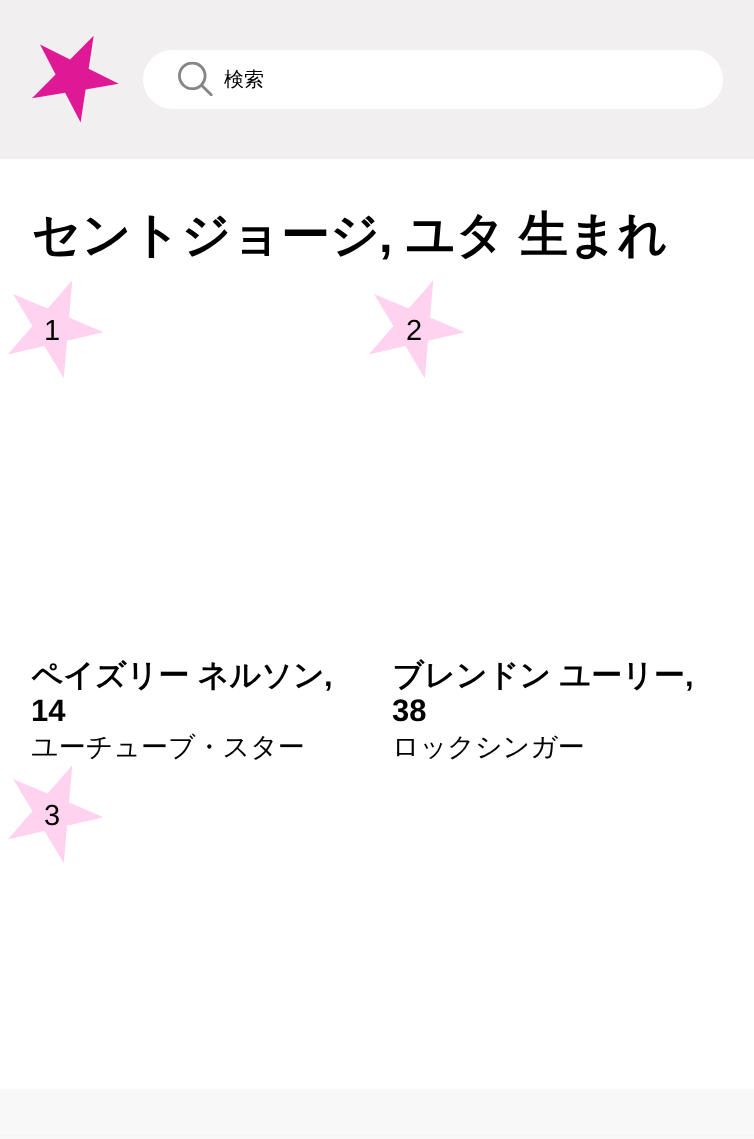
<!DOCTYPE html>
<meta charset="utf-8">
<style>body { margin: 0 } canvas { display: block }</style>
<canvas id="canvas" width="754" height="1139"></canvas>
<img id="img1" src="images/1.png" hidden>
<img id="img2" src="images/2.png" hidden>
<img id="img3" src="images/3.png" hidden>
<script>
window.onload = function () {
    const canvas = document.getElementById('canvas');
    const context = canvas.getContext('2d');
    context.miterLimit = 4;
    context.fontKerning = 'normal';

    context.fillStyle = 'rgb(255, 255, 255)';
    context.fillRect(0, 0, 754, 1139);
    context.fillStyle = 'rgb(248, 248, 248)';
    context.fillRect(0, 1089, 754, 46);
    context.fillStyle = 'rgb(241, 239, 239)';
    context.fillRect(0, 0, 754, 159);
    context.drawImage(document.getElementById('img1'), 32, 36, 87, 87);
    context.fillStyle = 'rgb(255, 255, 255)';
    context.beginPath();
    context.roundRect(144.5, 51.5, 577, 56, 28);
    context.fill();
    context.strokeStyle = 'rgb(255, 255, 255)';
    context.lineWidth = 3;
    context.stroke();
    context.drawImage(document.getElementById('img2'), 178, 61, 35, 36);
    context.drawImage(document.getElementById('img3'), 8, 280, 96, 98);
    context.drawImage(document.getElementById('img3'), 369, 280, 96, 98);
    context.drawImage(document.getElementById('img3'), 8, 765, 96, 98);
    context.fillStyle = 'rgb(248, 248, 248)';
    context.fillRect(0, 1136, 754, 3);
    context.fillStyle = 'rgb(245, 245, 245)';
    context.fillRect(0, 1135, 754, 1);
    context.font = '500 20px WenQuanYi Zen Hei';
    context.fillStyle = 'rgb(0, 0, 0)';
    context.fillText('検索', 224, 86);
    context.font = 'bold 48.75px WenQuanYi Zen Hei';
    context.fillText('セントジョージ', 31, 252);
    context.font = 'bold 48.75px Liberation Sans';
    context.fillText(',', 379, 252);
    context.wordSpacing = '-1px';
    context.font = 'bold 48.75px WenQuanYi Zen Hei';
    context.fillText('ユタ 生まれ', 405, 252);
    context.wordSpacing = '0px';
    context.font = '29px Liberation Sans';
    context.fillText('1', 44, 340);
    context.wordSpacing = '-1px';
    context.font = 'bold 31px WenQuanYi Zen Hei';
    context.fillText('ペイズリー ネルソン', 31, 686);
    context.wordSpacing = '0px';
    context.font = 'bold 31px Liberation Sans';
    context.fillText(',', 324, 686);
    context.fillText('14', 31, 721);
    context.font = '500 27px WenQuanYi Zen Hei';
    context.fillText('ユーチューブ・スター', 31, 756);
    context.font = '29px Liberation Sans';
    context.fillText('2', 406, 340);
    context.wordSpacing = '-1px';
    context.font = 'bold 31px WenQuanYi Zen Hei';
    context.fillText('ブレンドン ユーリー', 392, 686);
    context.wordSpacing = '0px';
    context.font = 'bold 31px Liberation Sans';
    context.fillText(',', 685, 686);
    context.fillText('38', 392, 721);
    context.font = '500 27px WenQuanYi Zen Hei';
    context.fillText('ロックシンガー', 392, 756);
    context.font = '29px Liberation Sans';
    context.fillText('3', 44, 825);
};
</script>
